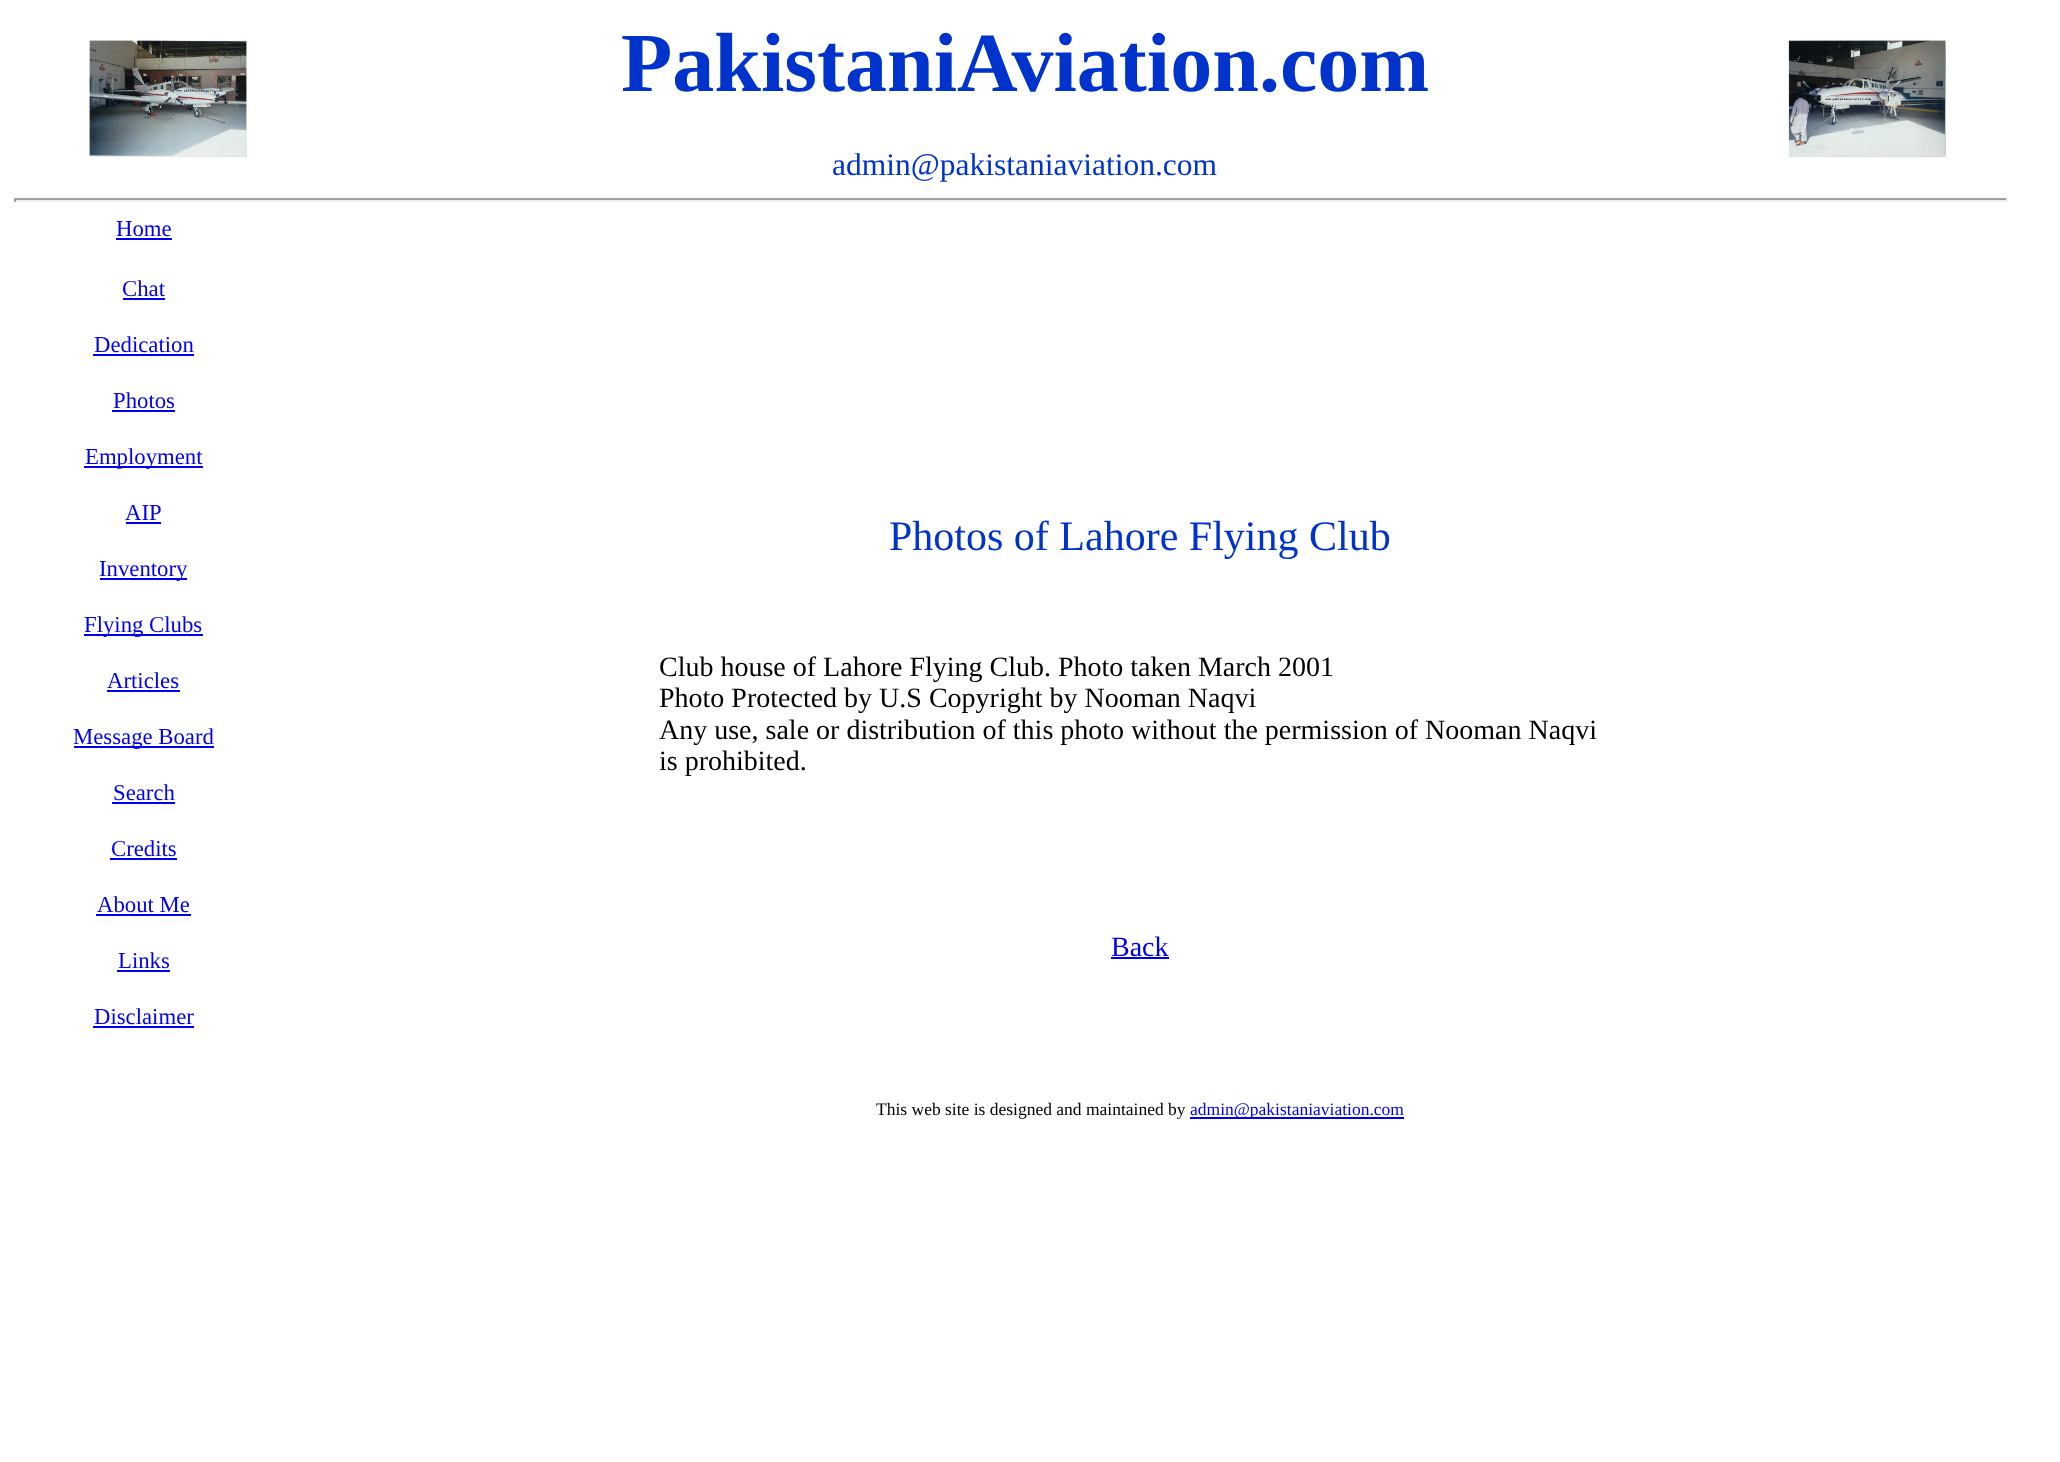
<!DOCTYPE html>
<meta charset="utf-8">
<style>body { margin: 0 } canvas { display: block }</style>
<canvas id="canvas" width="2060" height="1462"></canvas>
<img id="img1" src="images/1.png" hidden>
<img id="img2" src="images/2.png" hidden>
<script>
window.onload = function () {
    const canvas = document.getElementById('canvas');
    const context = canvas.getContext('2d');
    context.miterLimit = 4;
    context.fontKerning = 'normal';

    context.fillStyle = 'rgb(255, 255, 255)';
    context.fillRect(0, 0, 2060, 1462);
    context.drawImage(document.getElementById('img1'), 89, 40, 158, 118);
    context.drawImage(document.getElementById('img2'), 1788, 40, 158, 118);
    context.fillStyle = 'rgb(159, 159, 159)';
    context.fillRect(14, 198, 1993, 2);
    context.fillStyle = 'rgb(238, 238, 238)';
    context.fillRect(2006, 198, 2, 4);
    context.fillRect(14, 200, 1993, 2);
    context.fillStyle = 'rgb(159, 159, 159)';
    context.fillRect(14, 198, 2, 4);
    context.fillStyle = 'rgb(0, 0, 238)';
    context.fillRect(116, 238, 56, 2);
    context.fillRect(123, 298, 42, 2);
    context.fillRect(93, 354, 101, 2);
    context.fillRect(112, 410, 63, 2);
    context.fillRect(84, 466, 119, 2);
    context.fillRect(126, 522, 35, 2);
    context.fillRect(100, 578, 87, 2);
    context.fillRect(84, 634, 119, 2);
    context.fillRect(107, 690, 73, 2);
    context.fillRect(74, 746, 140, 2);
    context.fillRect(112, 802, 63, 2);
    context.fillRect(110, 858, 67, 2);
    context.fillRect(96, 914, 95, 2);
    context.fillRect(117, 970, 53, 2);
    context.fillRect(93, 1026, 101, 2);
    context.fillRect(1111, 957, 58, 2);
    context.fillRect(1190, 1117, 214, 2);
    context.font = 'bold 84px Liberation Serif';
    context.fillStyle = 'rgb(0, 51, 204)';
    context.fillText('PakistaniAviation.com', 621, 91);
    context.font = '31.5px Liberation Serif';
    context.fillText('admin@pakistaniaviation.com', 832, 175);
    context.font = '22.75px Liberation Serif';
    context.fillStyle = 'rgb(0, 0, 238)';
    context.fillText('Home', 116, 236);
    context.fillText('Chat', 122, 296);
    context.fillText('Dedication', 94, 352);
    context.fillText('Photos', 113, 408);
    context.fillText('Employment', 85, 464);
    context.fillText('AIP', 125, 520);
    context.fillText('Inventory', 99, 576);
    context.fillText('Flying Clubs', 84, 632);
    context.fillText('Articles', 107, 688);
    context.fillText('Message Board', 73, 744);
    context.fillText('Search', 113, 800);
    context.fillText('Credits', 111, 856);
    context.fillText('About Me', 97, 912);
    context.fillText('Links', 118, 968);
    context.fillText('Disclaimer', 94, 1024);
    context.font = '42px Liberation Serif';
    context.fillStyle = 'rgb(0, 51, 204)';
    context.fillText('Photos of Lahore Flying Club', 889, 550);
    context.font = '28px Liberation Serif';
    context.fillStyle = 'rgb(0, 0, 0)';
    context.fillText('Club house of Lahore Flying Club. Photo taken March 2001', 659, 676);
    context.fillText('Photo Protected by U.S Copyright by Nooman Naqvi', 659, 707);
    context.fillText('Any use, sale or distribution of this photo without the permission of Nooman Naqvi', 659, 739);
    context.fillText('is prohibited.', 659, 770);
    context.fillStyle = 'rgb(0, 0, 238)';
    context.fillText('Back', 1111, 956);
    context.font = '17.5px Liberation Serif';
    context.fillStyle = 'rgb(0, 0, 0)';
    context.fillText('This web site is designed and maintained by', 876, 1115);
    context.fillStyle = 'rgb(0, 0, 238)';
    context.fillText('admin@pakistaniaviation.com', 1190, 1115);
};
</script>
